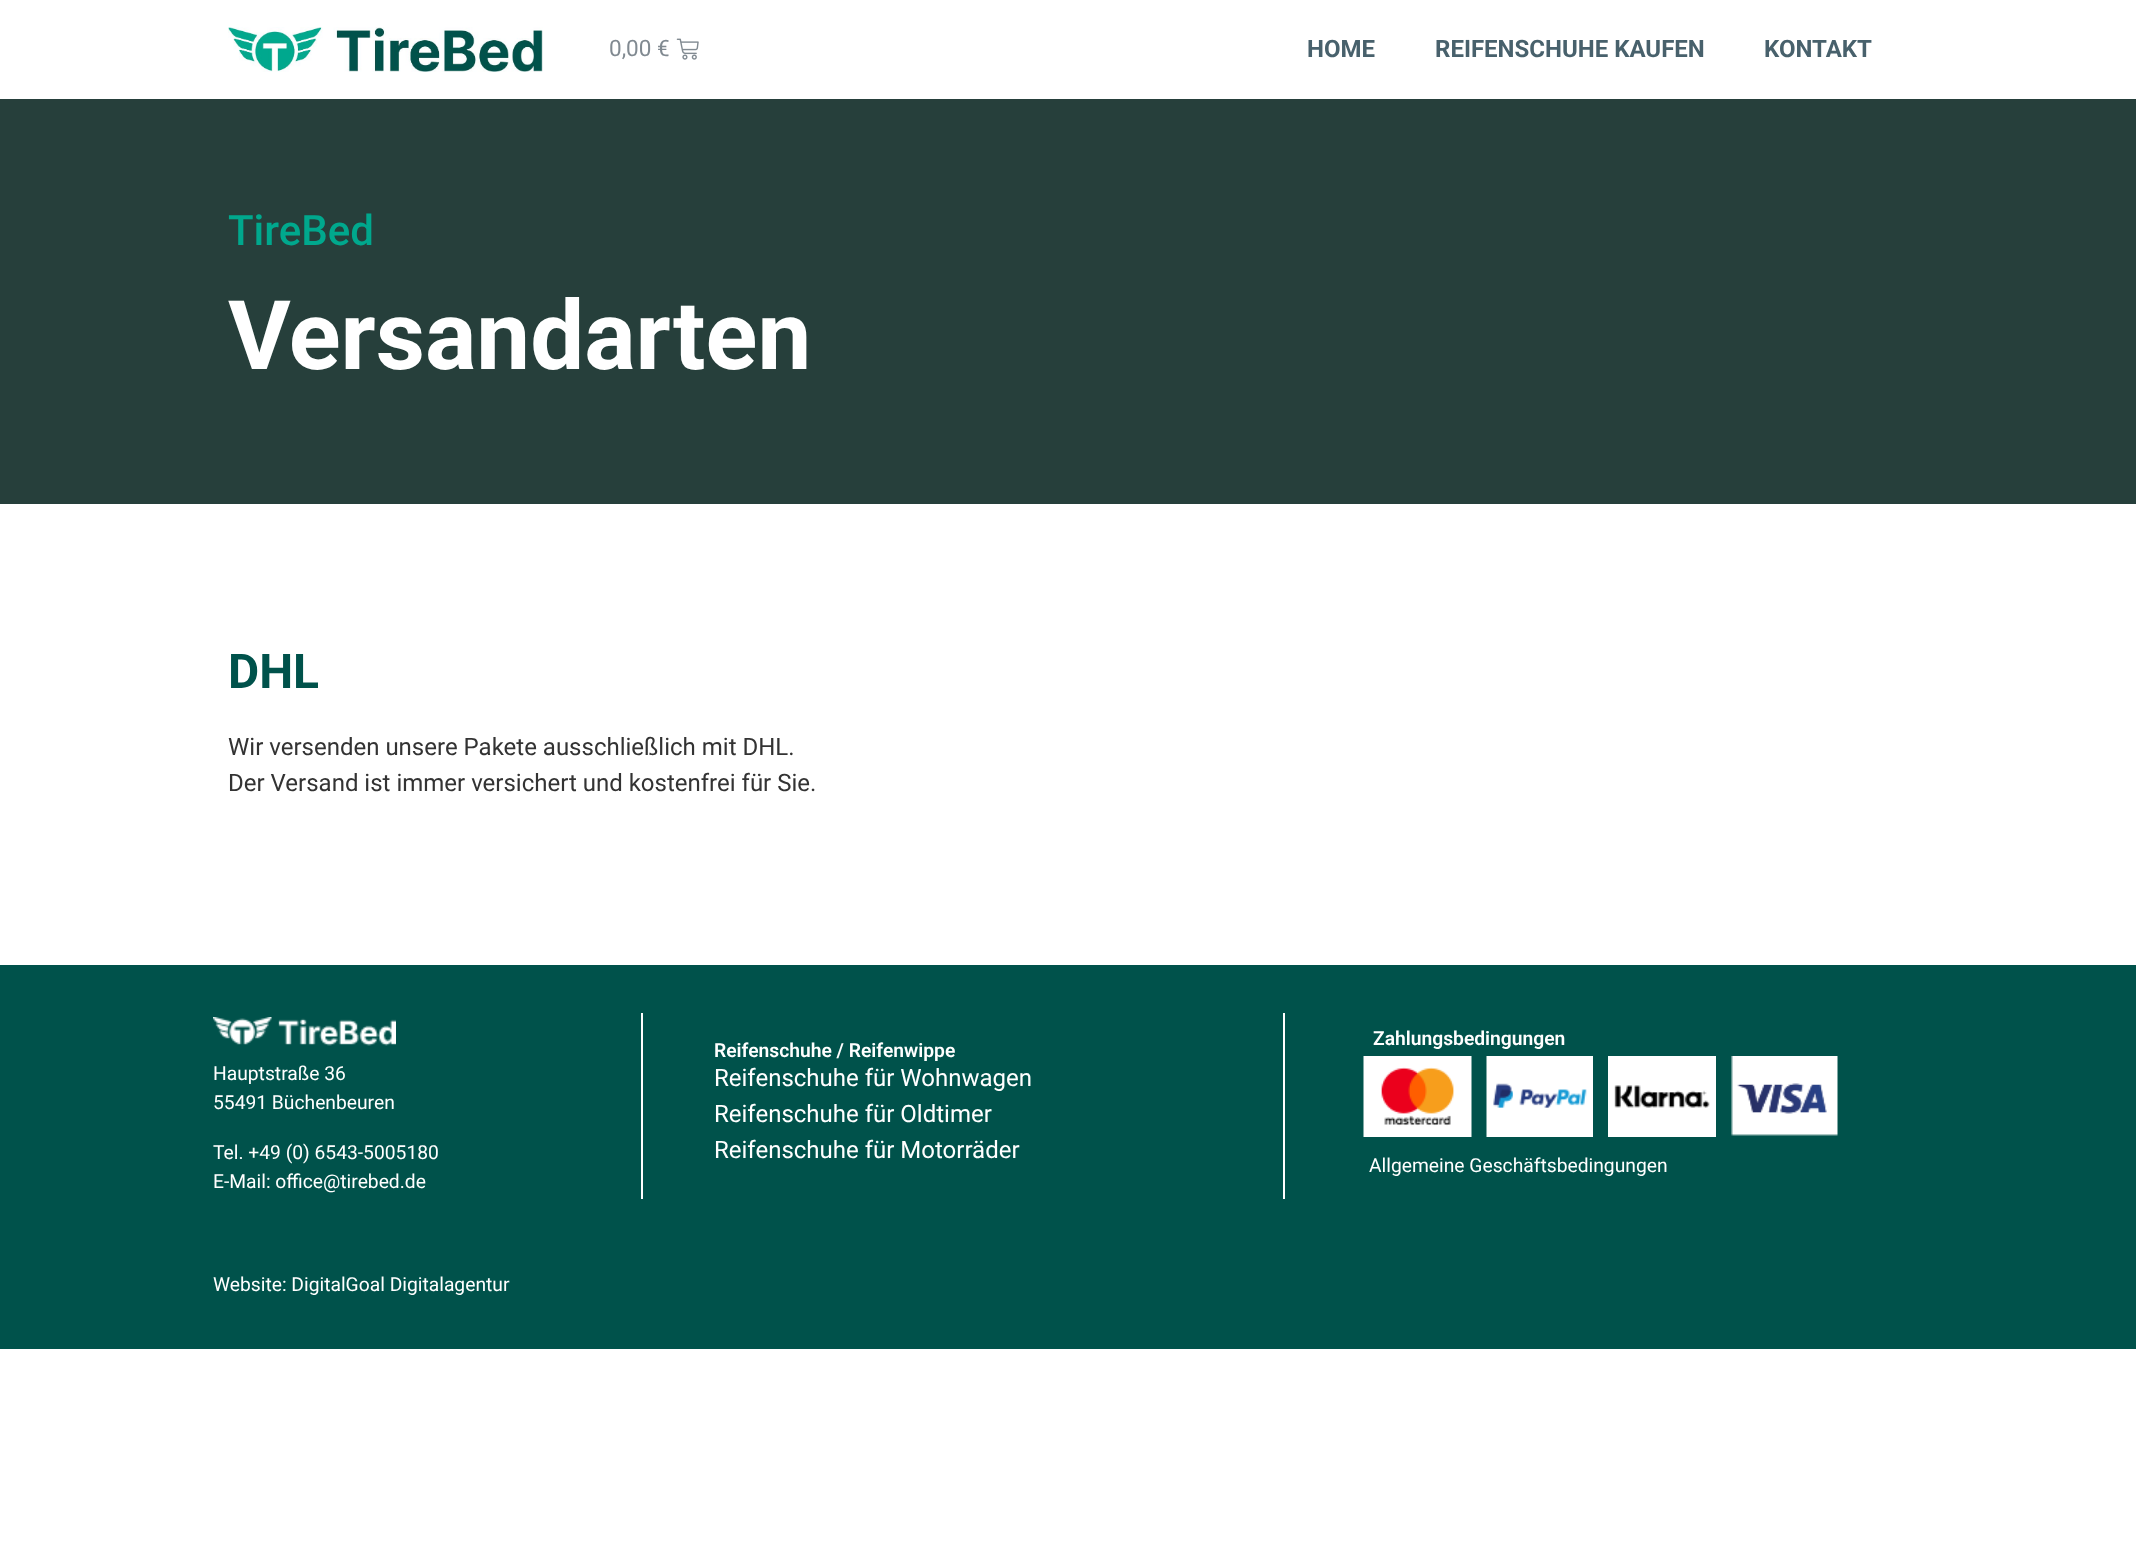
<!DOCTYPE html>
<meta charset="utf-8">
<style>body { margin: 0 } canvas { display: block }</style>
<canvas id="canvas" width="2136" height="1559"></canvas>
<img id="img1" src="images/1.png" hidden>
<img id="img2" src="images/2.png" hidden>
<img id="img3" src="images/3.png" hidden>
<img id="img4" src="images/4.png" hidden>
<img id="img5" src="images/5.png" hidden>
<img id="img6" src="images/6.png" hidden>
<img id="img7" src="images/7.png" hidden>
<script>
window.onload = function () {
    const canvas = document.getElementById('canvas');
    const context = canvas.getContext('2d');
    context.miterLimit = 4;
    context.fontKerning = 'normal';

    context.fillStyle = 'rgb(255, 255, 255)';
    context.fillRect(0, 0, 2136, 1559);
    context.drawImage(document.getElementById('img1'), 228, 27, 315, 45);
    context.drawImage(document.getElementById('img2'), 676, 38, 23, 22);
    context.fillStyle = 'rgb(38, 63, 59)';
    context.fillRect(0, 99, 2136, 405);
    context.fillStyle = 'rgb(0, 82, 75)';
    context.fillRect(0, 965, 2136, 384);
    context.drawImage(document.getElementById('img3'), 213, 1017, 183, 29);
    context.fillStyle = 'rgb(255, 255, 255)';
    context.fillRect(1283, 1013, 2, 186);
    context.fillRect(641, 1013, 2, 186);
    context.drawImage(document.getElementById('img4'), 1363, 1056, 109, 81);
    context.drawImage(document.getElementById('img5'), 1486, 1056, 107, 81);
    context.drawImage(document.getElementById('img6'), 1608, 1056, 108, 81);
    context.drawImage(document.getElementById('img7'), 1731, 1056, 107, 80);
    context.font = '22.5px Roboto';
    context.fillStyle = 'rgb(129, 138, 145)';
    context.fillText('0,00 €', 609, 56);
    context.font = 'bold 24px Roboto';
    context.fillStyle = 'rgb(72, 97, 108)';
    context.fillText('HOME', 1307, 57);
    context.fillText('REIFENSCHUHE KAUFEN', 1435, 57);
    context.fillText('KONTAKT', 1764, 57);
    context.font = '500 42px Roboto';
    context.fillStyle = 'rgb(0, 168, 141)';
    context.fillText('TireBed', 228, 245);
    context.font = 'bold 96px Roboto';
    context.fillStyle = 'rgb(255, 255, 255)';
    context.fillText('Versandarten', 228, 369);
    context.font = 'bold 48px Roboto';
    context.fillStyle = 'rgb(0, 82, 75)';
    context.fillText('DHL', 228, 688);
    context.font = '24px Roboto';
    context.fillStyle = 'rgb(51, 51, 51)';
    context.fillText('Wir versenden unsere Pakete ausschließlich mit DHL.', 228, 755);
    context.fillText('Der Versand ist immer versichert und kostenfrei für Sie.', 228, 791);
    context.font = '19.25px Roboto';
    context.fillStyle = 'rgb(255, 255, 255)';
    context.fillText('Hauptstraße 36', 213, 1080);
    context.fillText('55491 Büchenbeuren', 213, 1109);
    context.fillText('Tel. +49 (0) 6543-5005180', 213, 1159);
    context.fillText('E-Mail: office@tirebed.de', 213, 1188);
    context.font = '600 19.25px Roboto';
    context.fillText('Reifenschuhe / Reifenwippe', 714, 1057);
    context.font = '24px Roboto';
    context.fillText('Reifenschuhe für Wohnwagen', 714, 1086);
    context.fillText('Reifenschuhe für Oldtimer', 714, 1122);
    context.fillText('Reifenschuhe für Motorräder', 714, 1158);
    context.font = '600 19.25px Roboto';
    context.fillText('Zahlungsbedingungen', 1373, 1045);
    context.font = '19.25px Roboto';
    context.fillText('Allgemeine Geschäftsbedingungen', 1369, 1172);
    context.fillText('Website: DigitalGoal Digitalagentur', 213, 1291);
};
</script>
